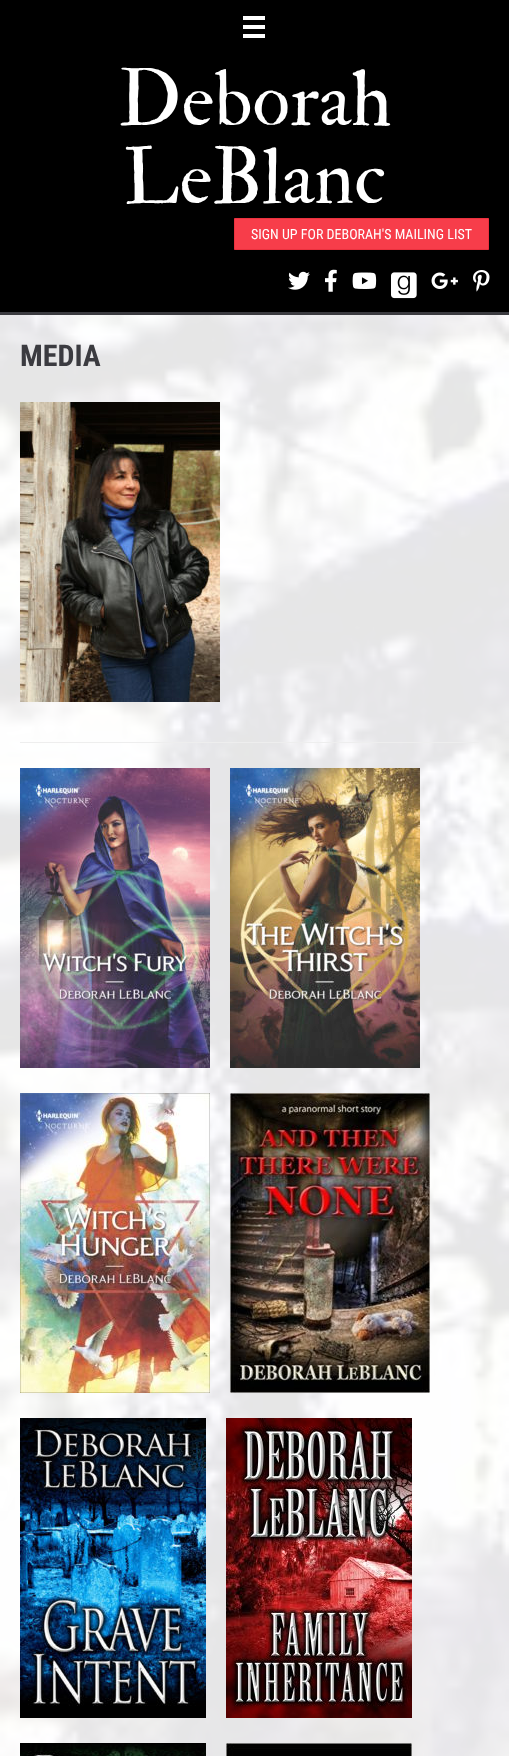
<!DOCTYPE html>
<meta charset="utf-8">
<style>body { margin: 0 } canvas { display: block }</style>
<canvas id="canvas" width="509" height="1756"></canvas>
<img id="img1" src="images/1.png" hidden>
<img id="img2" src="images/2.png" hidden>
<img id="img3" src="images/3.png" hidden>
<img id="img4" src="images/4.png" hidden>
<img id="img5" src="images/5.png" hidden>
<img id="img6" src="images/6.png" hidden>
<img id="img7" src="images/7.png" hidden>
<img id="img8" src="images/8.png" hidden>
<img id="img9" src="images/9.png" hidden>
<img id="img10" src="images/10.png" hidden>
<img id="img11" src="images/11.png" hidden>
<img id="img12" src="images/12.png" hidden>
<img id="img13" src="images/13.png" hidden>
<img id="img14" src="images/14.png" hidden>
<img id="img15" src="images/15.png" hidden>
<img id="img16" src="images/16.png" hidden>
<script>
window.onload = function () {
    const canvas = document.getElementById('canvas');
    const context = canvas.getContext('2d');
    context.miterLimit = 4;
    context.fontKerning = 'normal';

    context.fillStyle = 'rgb(0, 0, 0)';
    context.fillRect(0, 0, 509, 1756);
    context.fillStyle = 'rgb(59, 59, 64)';
    context.fillRect(0, 312, 509, 3);
    context.fillStyle = 'rgb(255, 255, 255)';
    context.fillRect(243, 16, 22, 4);
    context.fillRect(243, 25, 22, 4);
    context.fillRect(243, 34, 22, 4);
    context.fillStyle = 'rgb(247, 61, 74)';
    context.beginPath();
    context.rect(234.5, 218.5, 254, 31);
    context.fill();
    context.strokeStyle = 'rgb(235, 49, 62)';
    context.stroke();
    context.drawImage(document.getElementById('img1'), 288, 271, 22, 19);
    context.drawImage(document.getElementById('img2'), 325, 269, 12, 23);
    context.drawImage(document.getElementById('img3'), 352, 272, 25, 17);
    context.drawImage(document.getElementById('img4'), 391, 272, 26, 27);
    context.drawImage(document.getElementById('img5'), 431, 272, 27, 17);
    context.drawImage(document.getElementById('img6'), 473, 270, 17, 22);
    context.drawImage(document.getElementById('img7'), 0, 315, 509, 1441);
    context.drawImage(document.getElementById('img8'), 20, 402, 200, 300);
    context.fillStyle = 'rgb(238, 238, 238)';
    context.fillRect(20, 742, 459, 1);
    context.drawImage(document.getElementById('img9'), 20, 768, 190, 300);
    context.drawImage(document.getElementById('img10'), 230, 768, 190, 300);
    context.drawImage(document.getElementById('img11'), 20, 1093, 190, 300);
    context.drawImage(document.getElementById('img12'), 230, 1093, 200, 300);
    context.drawImage(document.getElementById('img13'), 20, 1418, 186, 300);
    context.drawImage(document.getElementById('img14'), 226, 1418, 186, 300);
    context.drawImage(document.getElementById('img15'), 20, 1743, 186, 13);
    context.drawImage(document.getElementById('img16'), 226, 1743, 186, 13);
    context.font = '78px IM FELL Double Pica';
    context.fillStyle = 'rgb(255, 255, 255)';
    context.fillText('Deborah', 118, 125);
    context.fillText('LeBlanc', 123, 203);
    context.font = '14px Roboto Condensed';
    context.fillText('SIGN UP FOR DEBORAH\'S MAILING LIST', 251, 239);
    context.font = 'bold 30px Roboto Condensed';
    context.fillStyle = 'rgb(59, 59, 64)';
    context.fillText('MEDIA', 20, 366);
};
</script>
